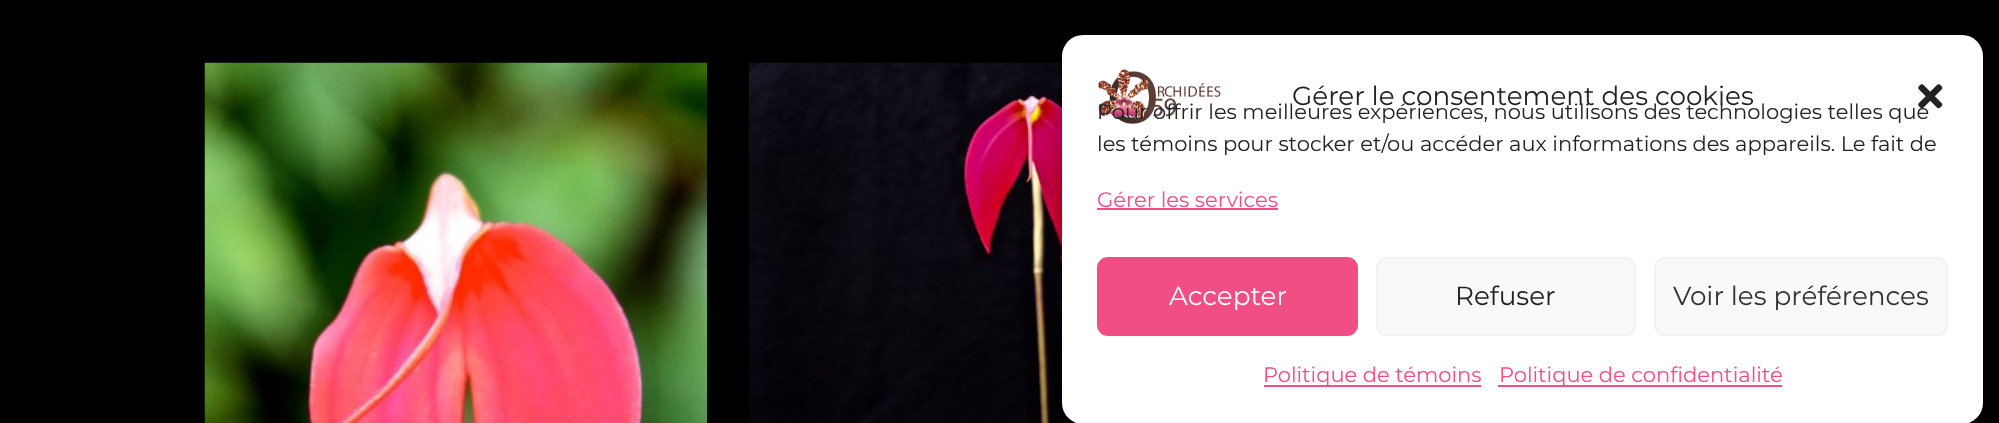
<!DOCTYPE html>
<meta charset="utf-8">
<style>body { margin: 0 } canvas { display: block }</style>
<canvas id="canvas" width="1999" height="423"></canvas>
<img id="img1" src="images/1.png" hidden>
<img id="img2" src="images/2.png" hidden>
<img id="img3" src="images/3.png" hidden>
<img id="img4" src="images/4.png" hidden>
<script>
window.onload = function () {
    const canvas = document.getElementById('canvas');
    const context = canvas.getContext('2d');
    context.miterLimit = 4;
    context.fontKerning = 'normal';

    context.fillStyle = 'rgb(0, 0, 0)';
    context.fillRect(0, 0, 1999, 423);
    context.drawImage(document.getElementById('img1'), 204, 62, 503, 361);
    context.drawImage(document.getElementById('img2'), 749, 62, 328, 361);
    context.fillStyle = 'rgba(0, 0, 0, 0.23)';
    context.filter = 'blur(5px)';
    context.beginPath();
    context.roundRect(1062, 46, 921, 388, 21);
    context.fill();
    context.filter = 'none';
    context.fillStyle = 'rgba(0, 0, 0, 0.19)';
    context.filter = 'blur(17.5px)';
    context.beginPath();
    context.roundRect(1062, 53, 921, 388, 21);
    context.fill();
    context.filter = 'none';
    context.fillStyle = 'rgb(255, 255, 255)';
    context.beginPath();
    context.roundRect(1062, 35, 921, 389, 21);
    context.fill();
    context.drawImage(document.getElementById('img3'), 1098, 68, 123, 57);
    context.drawImage(document.getElementById('img4'), 1918, 84, 25, 25);
    context.fillStyle = 'rgb(240, 78, 133)';
    context.fillRect(1097, 208, 181, 2);
    context.beginPath();
    context.roundRect(1098, 258, 259, 77, 10);
    context.fill();
    context.strokeStyle = 'rgb(240, 78, 133)';
    context.lineWidth = 2;
    context.stroke();
    context.fillStyle = 'rgb(249, 249, 249)';
    context.beginPath();
    context.roundRect(1377, 258, 258, 77, 10);
    context.fill();
    context.strokeStyle = 'rgb(242, 242, 242)';
    context.stroke();
    context.beginPath();
    context.roundRect(1655, 258, 292, 77, 10);
    context.fill();
    context.stroke();
    context.fillStyle = 'rgb(240, 78, 133)';
    context.fillRect(1264, 385, 217, 2);
    context.fillRect(1498, 385, 284, 2);
    context.font = '26.25px Montserrat';
    context.fillStyle = 'rgb(34, 34, 34)';
    context.fillText('Gérer le consentement des cookies', 1292, 105);
    context.font = '21px Montserrat';
    context.fillText('Pour offrir les meilleures expériences, nous utilisons des technologies telles que', 1097, 119);
    context.fillText('les témoins pour stocker et/ou accéder aux informations des appareils. Le fait de', 1097, 151);
    context.fillStyle = 'rgb(240, 78, 133)';
    context.fillText('Gérer les services', 1097, 207);
    context.font = '26.25px Montserrat';
    context.fillStyle = 'rgb(255, 255, 255)';
    context.fillText('Accepter', 1169, 305);
    context.fillStyle = 'rgb(34, 34, 34)';
    context.fillText('Refuser', 1455, 305);
    context.fillStyle = 'rgb(51, 51, 51)';
    context.fillText('Voir les préférences', 1673, 305);
    context.font = '21px Montserrat';
    context.fillStyle = 'rgb(240, 78, 133)';
    context.fillText('Politique de témoins', 1263, 382);
    context.fillText('Politique de confidentialité', 1499, 382);
};
</script>
